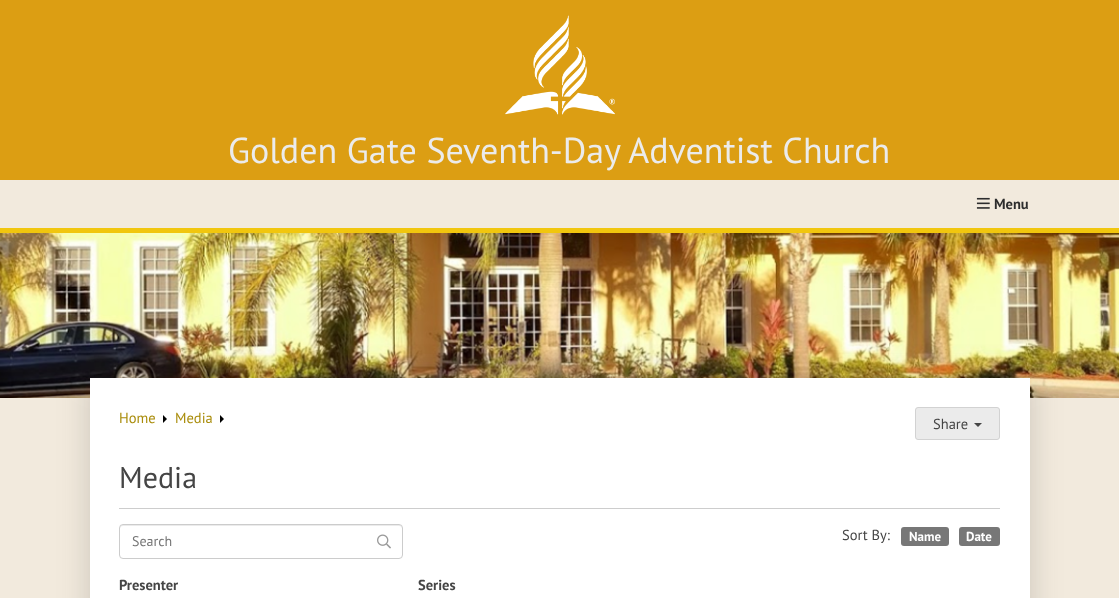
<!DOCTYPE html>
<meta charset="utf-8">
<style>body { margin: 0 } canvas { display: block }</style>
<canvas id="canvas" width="1119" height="598"></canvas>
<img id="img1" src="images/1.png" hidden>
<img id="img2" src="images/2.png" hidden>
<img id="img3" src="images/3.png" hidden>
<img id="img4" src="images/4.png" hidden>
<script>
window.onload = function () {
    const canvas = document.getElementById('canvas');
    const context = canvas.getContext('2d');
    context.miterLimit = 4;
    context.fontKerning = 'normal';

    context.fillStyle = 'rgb(242, 234, 221)';
    context.fillRect(0, 0, 1119, 598);
    context.fillStyle = 'rgb(220, 158, 19)';
    context.fillRect(0, 0, 1119, 180);
    context.drawImage(document.getElementById('img1'), 505, 15, 110, 100);
    context.fillStyle = 'rgb(241, 198, 14)';
    context.fillRect(0, 228, 1119, 5);
    context.drawImage(document.getElementById('img2'), 976, 197, 14, 12);
    context.drawImage(document.getElementById('img3'), 0, 233, 1119, 165);
    context.fillStyle = 'rgba(45, 45, 45, 0.2)';
    context.filter = 'blur(16px)';
    context.beginPath();
    context.rect(90, 378, 940, 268);
    context.fill();
    context.filter = 'none';
    context.fillStyle = 'rgb(255, 255, 255)';
    context.fillRect(90, 378, 940, 220);
    context.fillStyle = 'rgb(0, 0, 0)';
    context.beginPath();
    context.moveTo(163, 423);
    context.lineTo(163, 415);
    context.lineTo(167, 419);
    context.closePath();
    context.fill();
    context.beginPath();
    context.moveTo(220, 423);
    context.lineTo(220, 415);
    context.lineTo(224, 419);
    context.closePath();
    context.fill();
    context.fillStyle = 'rgb(235, 235, 235)';
    context.beginPath();
    context.roundRect(915.5, 407.5, 84, 32, 2.5);
    context.fill();
    context.strokeStyle = 'rgb(210, 210, 210)';
    context.stroke();
    context.fillStyle = 'rgb(69, 69, 69)';
    context.beginPath();
    context.moveTo(974, 423);
    context.lineTo(982, 423);
    context.lineTo(978, 427);
    context.closePath();
    context.fill();
    context.fillStyle = 'rgb(205, 205, 205)';
    context.fillRect(119, 508, 881, 1);
    context.fillStyle = 'rgb(235, 235, 235)';
    context.beginPath();
    context.moveTo(123, 526);
    context.lineTo(399, 526);
    context.bezierCurveTo(401, 526, 402, 527, 402, 529);
    context.lineTo(402, 528);
    context.bezierCurveTo(402, 526, 401, 525, 399, 525);
    context.lineTo(123, 525);
    context.bezierCurveTo(121, 525, 120, 526, 120, 528);
    context.lineTo(120, 529);
    context.bezierCurveTo(120, 527, 121, 526, 123, 526);
    context.closePath();
    context.fill();
    context.beginPath();
    context.roundRect(119.5, 524.5, 283, 34, 3.5);
    context.strokeStyle = 'rgb(204, 204, 204)';
    context.stroke();
    context.drawImage(document.getElementById('img4'), 377, 534, 14, 15);
    context.fillStyle = 'rgb(119, 119, 119)';
    context.beginPath();
    context.roundRect(901, 527, 48, 19, 3);
    context.fill();
    context.beginPath();
    context.roundRect(959, 527, 41, 19, 3);
    context.fill();
    context.font = '36px PT Sans';
    context.fillStyle = 'rgb(235, 235, 235)';
    context.fillText('Golden Gate Seventh-Day Adventist Church', 228, 163);
    context.font = 'bold 14.5px PT Sans';
    context.fillStyle = 'rgb(45, 45, 45)';
    context.fillText('Menu', 994, 209);
    context.font = '14.5px PT Sans';
    context.fillStyle = 'rgb(169, 140, 10)';
    context.fillText('Home', 119, 423);
    context.fillText('Media', 175, 423);
    context.fillStyle = 'rgb(69, 69, 69)';
    context.fillText('Share', 933, 429);
    context.font = '30px PT Sans';
    context.fillText('Media', 119, 488);
    context.font = '14px PT Sans';
    context.fillStyle = 'rgb(117, 117, 117)';
    context.fillText('Search', 132, 546);
    context.font = '14.5px PT Sans';
    context.fillStyle = 'rgb(69, 69, 69)';
    context.fillText('Sort By:', 842, 540);
    context.font = 'bold 13px PT Sans';
    context.fillStyle = 'rgb(255, 255, 255)';
    context.fillText('Name', 909, 541);
    context.fillText('Date', 966, 541);
    context.font = 'bold 14.5px PT Sans';
    context.fillStyle = 'rgb(69, 69, 69)';
    context.fillText('Presenter', 119, 590);
    context.fillText('Series', 418, 590);
};
</script>
